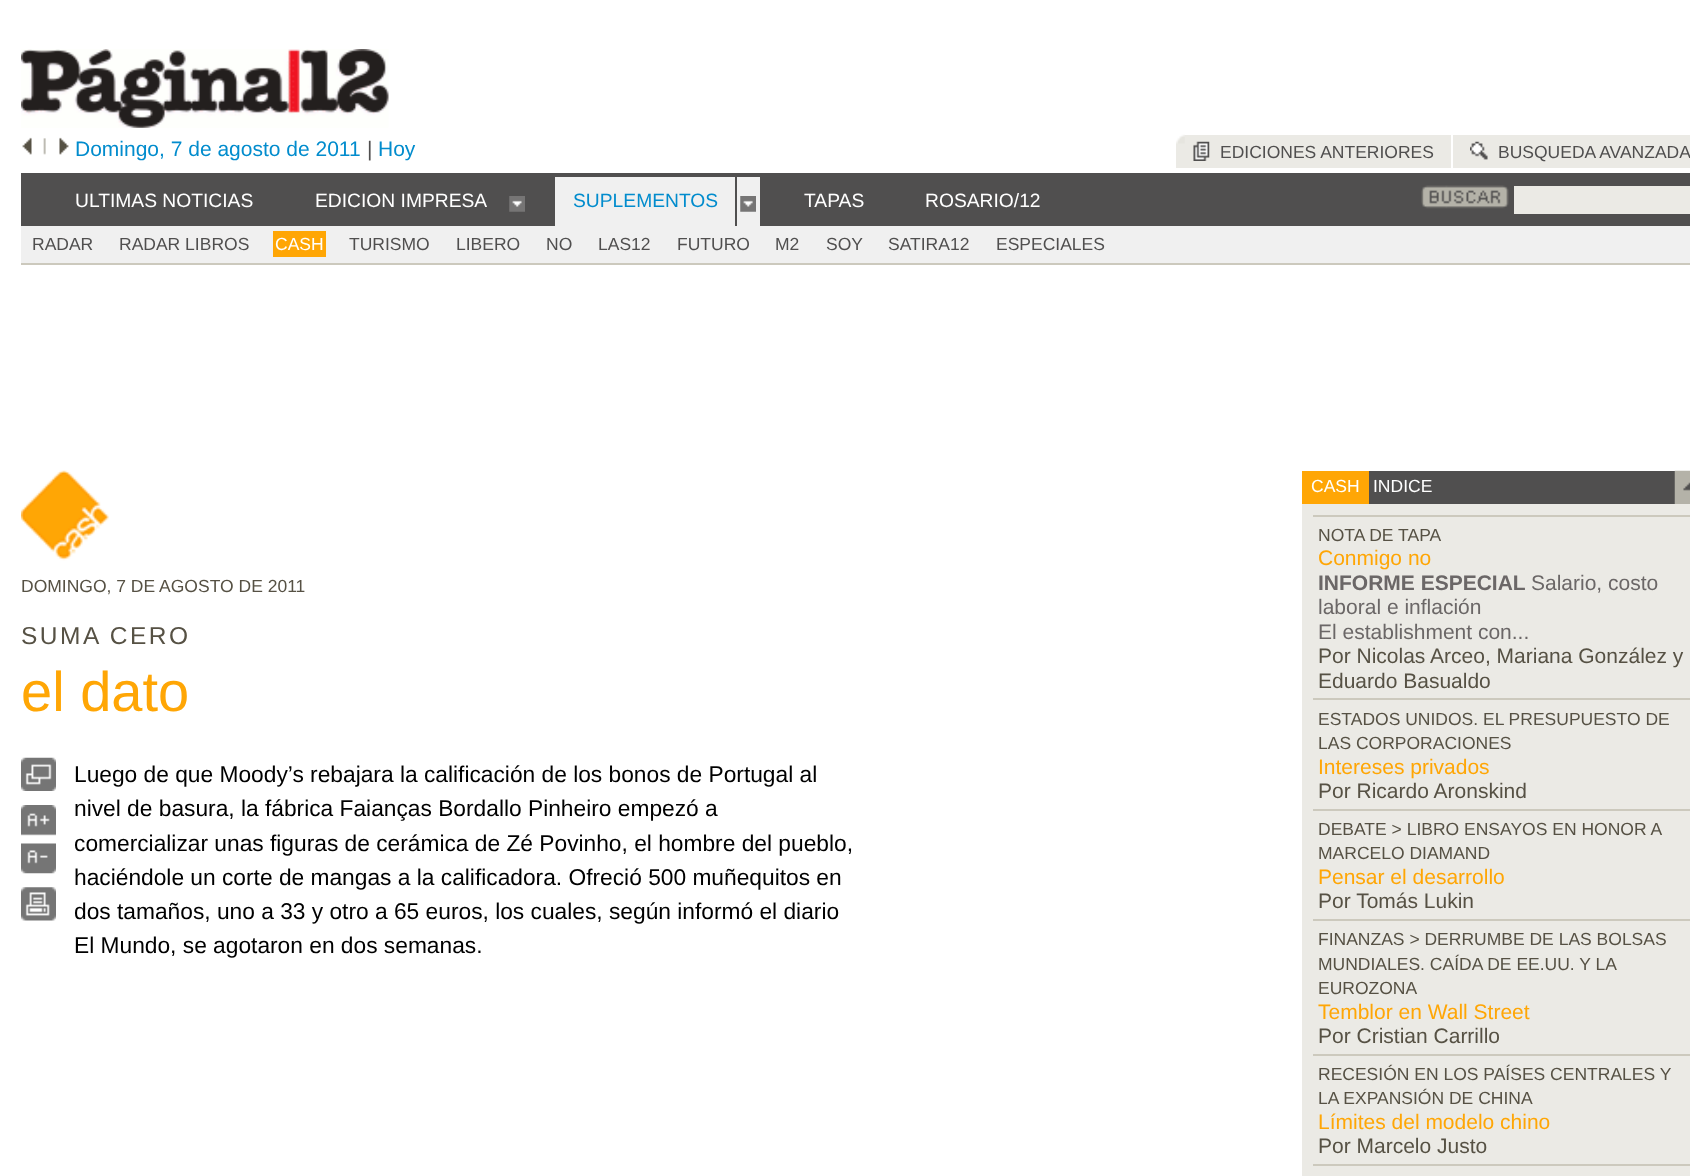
<!DOCTYPE html>
<meta charset="utf-8">
<style>body { margin: 0 } canvas { display: block }</style>
<canvas id="canvas" width="1690" height="1176"></canvas>
<img id="img1" src="images/1.png" hidden>
<img id="img2" src="images/2.png" hidden>
<img id="img3" src="images/3.png" hidden>
<img id="img4" src="images/4.png" hidden>
<img id="img5" src="images/5.png" hidden>
<img id="img6" src="images/6.png" hidden>
<img id="img7" src="images/7.png" hidden>
<img id="img8" src="images/8.png" hidden>
<img id="img9" src="images/9.png" hidden>
<img id="img10" src="images/10.png" hidden>
<img id="img11" src="images/11.png" hidden>
<img id="img12" src="images/12.png" hidden>
<img id="img13" src="images/13.png" hidden>
<img id="img14" src="images/14.png" hidden>
<img id="img15" src="images/15.png" hidden>
<img id="img16" src="images/16.png" hidden>
<script>
window.onload = function () {
    const canvas = document.getElementById('canvas');
    const context = canvas.getContext('2d');
    context.miterLimit = 4;
    context.fontKerning = 'normal';

    context.fillStyle = 'rgb(255, 255, 255)';
    context.fillRect(0, 0, 1690, 1176);
    context.drawImage(document.getElementById('img1'), 21, 49, 368, 79);
    context.drawImage(document.getElementById('img2'), 22, 137, 10, 18);
    context.drawImage(document.getElementById('img3'), 43, 138, 3, 17);
    context.drawImage(document.getElementById('img4'), 59, 137, 10, 18);
    context.fillStyle = 'rgb(235, 234, 229)';
    context.fillRect(1176, 135, 275, 33);
    context.drawImage(document.getElementById('img5'), 1176, 134, 9, 10);
    context.drawImage(document.getElementById('img6'), 1193, 141, 17, 20);
    context.fillRect(1453, 135, 237, 33);
    context.drawImage(document.getElementById('img7'), 1470, 141, 18, 19);
    context.fillStyle = 'rgb(80, 79, 79)';
    context.fillRect(21, 173, 1669, 53);
    context.drawImage(document.getElementById('img8'), 509, 196, 16, 16);
    context.fillStyle = 'rgb(240, 240, 240)';
    context.fillRect(555, 177, 180, 49);
    context.fillRect(737, 177, 23, 49);
    context.drawImage(document.getElementById('img9'), 740, 196, 16, 16);
    context.drawImage(document.getElementById('img10'), 1421, 185, 88, 24);
    context.fillStyle = 'rgb(235, 234, 229)';
    context.fillRect(1514, 186, 176, 28);
    context.fillStyle = 'rgb(240, 240, 240)';
    context.fillRect(21, 226, 1669, 37);
    context.fillStyle = 'rgb(204, 201, 189)';
    context.fillRect(21, 263, 1669, 2);
    context.fillStyle = 'rgb(255, 166, 5)';
    context.fillRect(273, 231, 53, 26);
    context.drawImage(document.getElementById('img11'), 21, 470, 88, 91);
    context.drawImage(document.getElementById('img12'), 21, 757, 35, 34);
    context.drawImage(document.getElementById('img13'), 21, 805, 35, 31);
    context.drawImage(document.getElementById('img14'), 21, 843, 35, 31);
    context.drawImage(document.getElementById('img15'), 21, 887, 35, 34);
    context.fillRect(1302, 471, 67, 33);
    context.fillStyle = 'rgb(80, 79, 79)';
    context.fillRect(1369, 471, 306, 33);
    context.drawImage(document.getElementById('img16'), 1674, 470, 16, 34);
    context.fillStyle = 'rgb(235, 234, 229)';
    context.fillRect(1302, 504, 388, 672);
    context.fillStyle = 'rgb(204, 201, 189)';
    context.fillRect(1313, 515, 377, 2);
    context.fillRect(1313, 698, 377, 2);
    context.fillRect(1313, 809, 377, 2);
    context.fillRect(1313, 919, 377, 2);
    context.fillRect(1313, 1054, 377, 2);
    context.fillRect(1313, 1164, 377, 2);
    context.font = '21px Liberation Sans';
    context.fillStyle = 'rgb(2, 140, 205)';
    context.fillText('Domingo, 7 de agosto de 2011', 75, 156);
    context.fillStyle = 'rgb(80, 79, 79)';
    context.fillText('|', 367, 156);
    context.fillStyle = 'rgb(2, 140, 205)';
    context.fillText('Hoy', 378, 156);
    context.font = '17.5px Liberation Sans';
    context.fillStyle = 'rgb(80, 79, 79)';
    context.fillText('EDICIONES ANTERIORES', 1220, 158);
    context.fillText('BUSQUEDA AVANZADA', 1498, 158);
    context.font = '19.25px Liberation Sans';
    context.fillStyle = 'rgb(255, 255, 255)';
    context.fillText('ULTIMAS NOTICIAS', 75, 207);
    context.fillText('EDICION IMPRESA', 315, 207);
    context.fillStyle = 'rgb(2, 140, 205)';
    context.fillText('SUPLEMENTOS', 573, 207);
    context.fillStyle = 'rgb(255, 255, 255)';
    context.fillText('TAPAS', 804, 207);
    context.fillText('ROSARIO/12', 925, 207);
    context.font = '17.5px Liberation Sans';
    context.fillStyle = 'rgb(80, 79, 79)';
    context.fillText('RADAR', 32, 250);
    context.fillText('RADAR LIBROS', 119, 250);
    context.fillStyle = 'rgb(255, 255, 255)';
    context.fillText('CASH', 275, 250);
    context.fillStyle = 'rgb(80, 79, 79)';
    context.fillText('TURISMO', 349, 250);
    context.fillText('LIBERO', 456, 250);
    context.fillText('NO', 546, 250);
    context.fillText('LAS12', 598, 250);
    context.fillText('FUTURO', 677, 250);
    context.fillText('M2', 775, 250);
    context.fillText('SOY', 826, 250);
    context.fillText('SATIRA12', 888, 250);
    context.fillText('ESPECIALES', 996, 250);
    context.fillStyle = 'rgb(86, 81, 68)';
    context.fillText('DOMINGO, 7 DE AGOSTO DE 2011', 21, 592);
    context.letterSpacing = '2.5px';
    context.font = '24.5px Liberation Sans';
    context.fillText('SUMA CERO', 21, 644);
    context.letterSpacing = '0px';
    context.font = '56px Liberation Sans';
    context.fillStyle = 'rgb(255, 166, 5)';
    context.fillText('el dato', 21, 711);
    context.font = '22.75px Liberation Sans';
    context.fillStyle = 'rgb(0, 0, 0)';
    context.fillText('Luego de que Moody’s rebajara la calificación de los bonos de Portugal al', 74, 782);
    context.fillText('nivel de basura, la fábrica Faianças Bordallo Pinheiro empezó a', 74, 816);
    context.fillText('comercializar unas figuras de cerámica de Zé Povinho, el hombre del pueblo,', 74, 851);
    context.fillText('haciéndole un corte de mangas a la calificadora. Ofreció 500 muñequitos en', 74, 885);
    context.fillText('dos tamaños, uno a 33 y otro a 65 euros, los cuales, según informó el diario', 74, 919);
    context.fillText('El Mundo, se agotaron en dos semanas.', 74, 953);
    context.font = '17.5px Liberation Sans';
    context.fillStyle = 'rgb(255, 255, 255)';
    context.fillText('CASH', 1311, 492);
    context.fillText('INDICE', 1373, 492);
    context.fillStyle = 'rgb(86, 81, 68)';
    context.fillText('NOTA DE TAPA', 1318, 541);
    context.font = '21px Liberation Sans';
    context.fillStyle = 'rgb(255, 166, 5)';
    context.fillText('Conmigo no', 1318, 565);
    context.font = 'bold 21px Liberation Sans';
    context.fillStyle = 'rgb(107, 103, 103)';
    context.fillText('INFORME ESPECIAL', 1318, 590);
    context.font = '21px Liberation Sans';
    context.fillText('Salario, costo', 1531, 590);
    context.fillText('laboral e inflación', 1318, 614);
    context.fillText('El establishment con...', 1318, 639);
    context.fillStyle = 'rgb(86, 81, 68)';
    context.fillText('Por Nicolas Arceo, Mariana González y', 1318, 663);
    context.fillText('Eduardo Basualdo', 1318, 688);
    context.font = '17.5px Liberation Sans';
    context.fillText('ESTADOS UNIDOS. EL PRESUPUESTO DE', 1318, 725);
    context.fillText('LAS CORPORACIONES', 1318, 749);
    context.font = '21px Liberation Sans';
    context.fillStyle = 'rgb(255, 166, 5)';
    context.fillText('Intereses privados', 1318, 774);
    context.fillStyle = 'rgb(86, 81, 68)';
    context.fillText('Por Ricardo Aronskind', 1318, 798);
    context.font = '17.5px Liberation Sans';
    context.fillText('DEBATE > LIBRO ENSAYOS EN HONOR A', 1318, 835);
    context.fillText('MARCELO DIAMAND', 1318, 859);
    context.font = '21px Liberation Sans';
    context.fillStyle = 'rgb(255, 166, 5)';
    context.fillText('Pensar el desarrollo', 1318, 884);
    context.fillStyle = 'rgb(86, 81, 68)';
    context.fillText('Por Tomás Lukin', 1318, 908);
    context.font = '17.5px Liberation Sans';
    context.fillText('FINANZAS > DERRUMBE DE LAS BOLSAS', 1318, 945);
    context.fillText('MUNDIALES. CAÍDA DE EE.UU. Y LA', 1318, 970);
    context.fillText('EUROZONA', 1318, 994);
    context.font = '21px Liberation Sans';
    context.fillStyle = 'rgb(255, 166, 5)';
    context.fillText('Temblor en Wall Street', 1318, 1019);
    context.fillStyle = 'rgb(86, 81, 68)';
    context.fillText('Por Cristian Carrillo', 1318, 1043);
    context.font = '17.5px Liberation Sans';
    context.fillText('RECESIÓN EN LOS PAÍSES CENTRALES Y', 1318, 1080);
    context.fillText('LA EXPANSIÓN DE CHINA', 1318, 1104);
    context.font = '21px Liberation Sans';
    context.fillStyle = 'rgb(255, 166, 5)';
    context.fillText('Límites del modelo chino', 1318, 1129);
    context.fillStyle = 'rgb(86, 81, 68)';
    context.fillText('Por Marcelo Justo', 1318, 1153);
};
</script>
